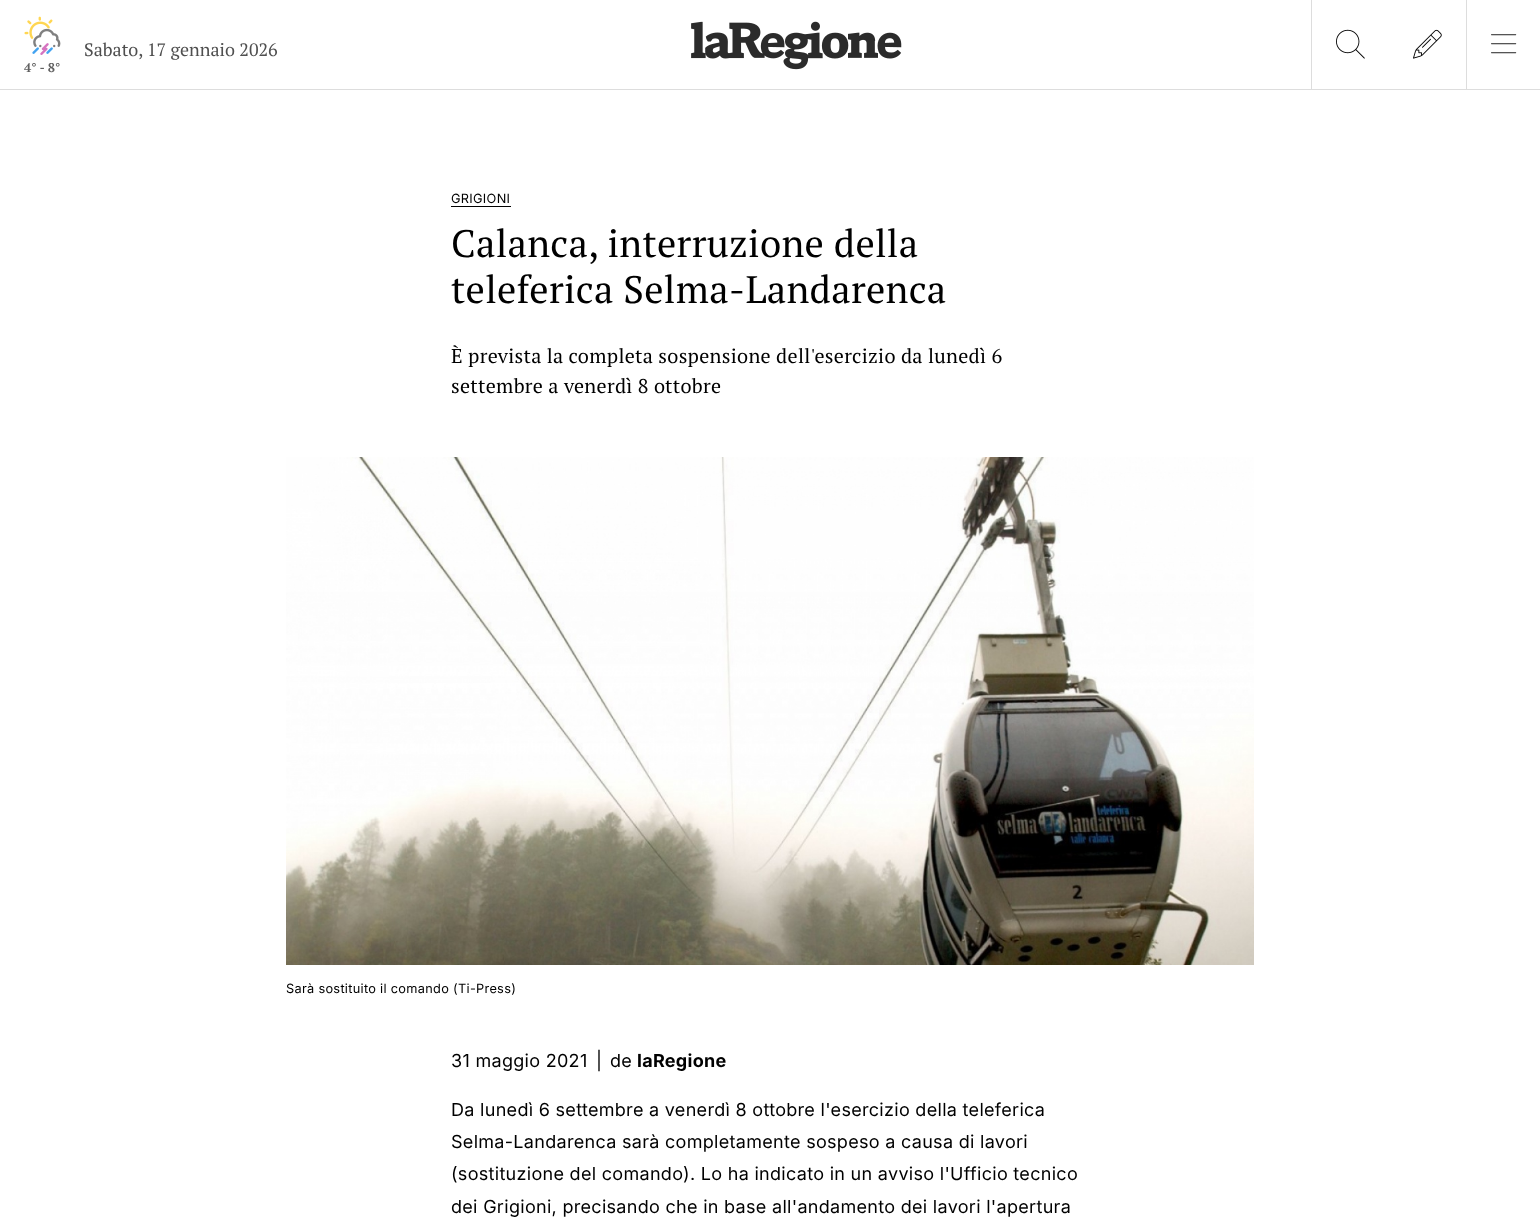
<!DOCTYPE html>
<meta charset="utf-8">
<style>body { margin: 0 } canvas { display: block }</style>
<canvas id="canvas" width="1540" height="1221"></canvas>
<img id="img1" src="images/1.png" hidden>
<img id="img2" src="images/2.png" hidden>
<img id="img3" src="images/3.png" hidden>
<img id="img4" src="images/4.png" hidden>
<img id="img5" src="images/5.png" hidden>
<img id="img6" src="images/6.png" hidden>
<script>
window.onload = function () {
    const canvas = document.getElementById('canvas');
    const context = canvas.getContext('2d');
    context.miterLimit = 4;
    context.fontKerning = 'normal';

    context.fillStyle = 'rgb(255, 255, 255)';
    context.fillRect(0, 0, 1540, 1221);
    context.fillStyle = 'rgb(221, 221, 221)';
    context.fillRect(0, 89, 1540, 1);
    context.drawImage(document.getElementById('img1'), 24, 16, 37, 39);
    context.drawImage(document.getElementById('img2'), 691, 21, 211, 49);
    context.fillRect(1311, 0, 1, 90);
    context.drawImage(document.getElementById('img3'), 1336, 29, 29, 30);
    context.drawImage(document.getElementById('img4'), 1413, 29, 29, 30);
    context.fillRect(1466, 0, 1, 90);
    context.drawImage(document.getElementById('img5'), 1491, 34, 26, 20);
    context.fillStyle = 'rgb(0, 0, 0)';
    context.fillRect(451, 206, 60, 1);
    context.drawImage(document.getElementById('img6'), 286, 457, 968, 508);
    context.font = '18px PT Serif';
    context.fillStyle = 'rgb(79, 79, 79)';
    context.fillText('Sabato, 17 gennaio 2026', 84, 56);
    context.font = 'bold 12.75px PT Serif';
    context.fillStyle = 'rgb(97, 97, 97)';
    context.fillText('4° - 8°', 24, 72);
    context.letterSpacing = '0.3px';
    context.font = '12.75px Inter';
    context.fillStyle = 'rgb(0, 0, 0)';
    context.fillText('GRIGIONI', 451, 203);
    context.font = '38.4px PT Serif';
    context.fillText('Calanca, interruzione della', 451, 257);
    context.fillText('teleferica Selma-Landarenca', 451, 303);
    context.font = '20px PT Serif';
    context.fillText('È prevista la completa sospensione dell\'esercizio da lunedì 6', 451, 363);
    context.fillText('settembre a venerdì 8 ottobre', 451, 393);
    context.font = '12.75px Inter';
    context.fillText('Sarà sostituito il comando (Ti-Press)', 286, 993);
    context.font = '18px Inter';
    context.fillText('31 maggio 2021', 451, 1067);
    context.fillText('|', 596, 1067);
    context.fillText('de', 610, 1067);
    context.font = 'bold 18px Inter';
    context.fillText('laRegione', 637, 1067);
    context.font = '18px Inter';
    context.fillText('Da lunedì 6 settembre a venerdì 8 ottobre l\'esercizio della teleferica', 451, 1116);
    context.fillText('Selma-Landarenca sarà completamente sospeso a causa di lavori', 451, 1148);
    context.fillText('(sostituzione del comando). Lo ha indicato in un avviso l\'Ufficio tecnico', 451, 1180);
    context.fillText('dei Grigioni, precisando che in base all\'andamento dei lavori l\'apertura', 451, 1213);
};
</script>
